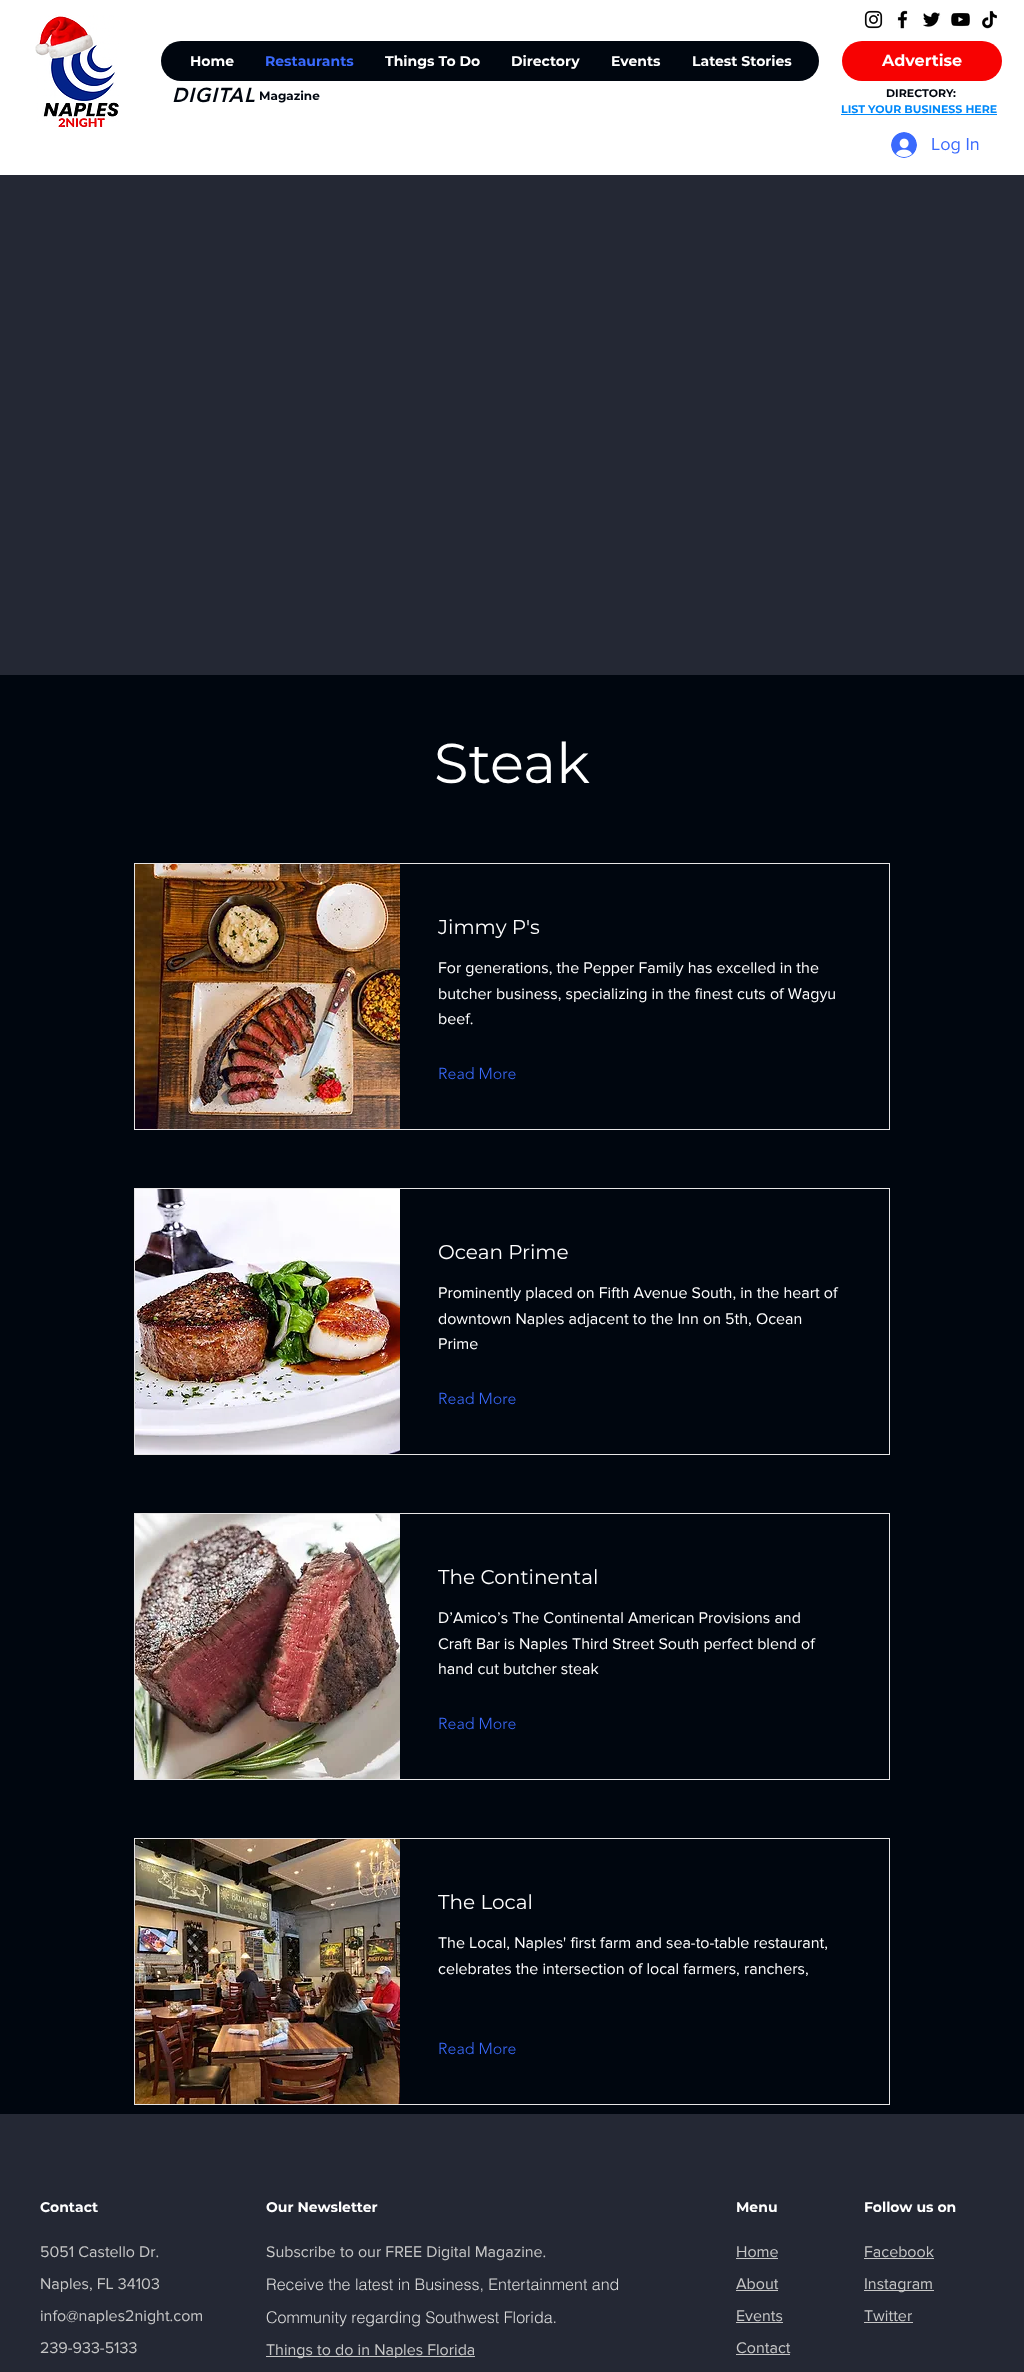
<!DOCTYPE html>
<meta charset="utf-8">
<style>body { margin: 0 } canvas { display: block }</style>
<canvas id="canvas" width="1024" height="2372"></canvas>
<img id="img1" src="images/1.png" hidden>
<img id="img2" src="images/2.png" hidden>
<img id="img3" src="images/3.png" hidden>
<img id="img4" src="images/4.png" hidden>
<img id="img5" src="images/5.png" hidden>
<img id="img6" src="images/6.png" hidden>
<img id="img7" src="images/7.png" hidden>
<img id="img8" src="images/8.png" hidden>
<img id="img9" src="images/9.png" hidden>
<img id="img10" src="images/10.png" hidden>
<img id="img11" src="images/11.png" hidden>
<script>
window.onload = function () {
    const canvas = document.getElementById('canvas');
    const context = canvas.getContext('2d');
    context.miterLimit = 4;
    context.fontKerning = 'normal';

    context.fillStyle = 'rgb(0, 6, 15)';
    context.fillRect(0, 0, 1024, 2372);
    context.fillStyle = 'rgb(255, 255, 255)';
    context.fillRect(0, 0, 1024, 175);
    context.drawImage(document.getElementById('img1'), 35, 15, 84, 112);
    context.drawImage(document.getElementById('img2'), 864, 10, 19, 19);
    context.drawImage(document.getElementById('img3'), 897, 10, 11, 19);
    context.drawImage(document.getElementById('img4'), 923, 12, 18, 15);
    context.drawImage(document.getElementById('img5'), 951, 13, 19, 14);
    context.drawImage(document.getElementById('img6'), 982, 10, 15, 19);
    context.fillStyle = 'rgb(0, 6, 15)';
    context.beginPath();
    context.roundRect(161, 41, 658, 40, 20);
    context.fill();
    context.fillStyle = 'rgb(247, 2, 2)';
    context.beginPath();
    context.roundRect(842, 41, 160, 40, 20);
    context.fill();
    context.fillStyle = 'rgb(0, 137, 250)';
    context.fillRect(841, 114, 156, 1);
    context.drawImage(document.getElementById('img7'), 891, 132, 26, 26);
    context.fillStyle = 'rgb(36, 40, 52)';
    context.fillRect(0, 175, 1024, 500);
    context.strokeStyle = 'rgb(232, 230, 230)';
    context.strokeRect(134.5, 863.5, 755, 266);
    context.drawImage(document.getElementById('img8'), 135, 864, 265, 265);
    context.strokeRect(134.5, 1188.5, 755, 266);
    context.drawImage(document.getElementById('img9'), 135, 1189, 265, 265);
    context.strokeRect(134.5, 1513.5, 755, 266);
    context.drawImage(document.getElementById('img10'), 135, 1514, 265, 265);
    context.strokeRect(134.5, 1838.5, 755, 266);
    context.drawImage(document.getElementById('img11'), 135, 1839, 265, 265);
    context.fillRect(0, 2114, 1024, 258);
    context.fillStyle = 'rgb(199, 199, 199)';
    context.fillRect(266, 2356, 209, 1);
    context.fillRect(736, 2258, 42, 1);
    context.fillRect(736, 2290, 42, 1);
    context.fillRect(736, 2322, 47, 1);
    context.fillRect(736, 2354, 54, 1);
    context.fillRect(864, 2258, 70, 1);
    context.fillRect(864, 2290, 70, 1);
    context.fillRect(864, 2322, 49, 1);
    context.font = 'bold 14px Montserrat';
    context.fillStyle = 'rgb(255, 255, 255)';
    context.fillText('Home', 190, 66);
    context.fillStyle = 'rgb(58, 106, 253)';
    context.fillText('Restaurants', 265, 66);
    context.fillStyle = 'rgb(255, 255, 255)';
    context.fillText('Things To Do', 385, 66);
    context.fillText('Directory', 511, 66);
    context.fillText('Events', 611, 66);
    context.fillText('Latest Stories', 692, 66);
    context.font = 'bold 16px Montserrat';
    context.fillText('Advertise', 882, 66);
    context.letterSpacing = '1px';
    context.font = 'italic 900 20px "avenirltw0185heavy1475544"';
    context.fillStyle = 'rgb(0, 6, 15)';
    context.fillText('DIGITAL', 172, 102);
    context.letterSpacing = '0px';
    context.font = 'bold 12px Montserrat';
    context.fillText('Magazine', 259, 100);
    context.font = 'bold 11px Montserrat';
    context.fillText('DIRECTORY:', 886, 97);
    context.fillStyle = 'rgb(0, 137, 250)';
    context.fillText('LIST YOUR BUSINESS HERE', 841, 113);
    context.font = '18px "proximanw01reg"';
    context.fillStyle = 'rgb(58, 106, 253)';
    context.fillText('Log In', 931, 150);
    context.font = '56px Montserrat';
    context.fillStyle = 'rgb(255, 255, 255)';
    context.fillText('Steak', 434, 783);
    context.font = '20px Montserrat';
    context.fillText('Jimmy P\'s', 438, 934);
    context.font = '16px "proximanw01reg"';
    context.fillText('For generations, the Pepper Family has excelled in the', 438, 973);
    context.fillText('butcher business, specializing in the finest cuts of Wagyu', 438, 999);
    context.fillText('beef.', 438, 1024);
    context.font = '300 16px "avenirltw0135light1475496"';
    context.fillStyle = 'rgb(58, 106, 253)';
    context.fillText('Read More', 438, 1079);
    context.font = '20px Montserrat';
    context.fillStyle = 'rgb(255, 255, 255)';
    context.fillText('Ocean Prime', 438, 1259);
    context.font = '16px "proximanw01reg"';
    context.fillText('Prominently placed on Fifth Avenue South, in the heart of', 438, 1298);
    context.fillText('downtown Naples adjacent to the Inn on 5th, Ocean', 438, 1324);
    context.fillText('Prime', 438, 1349);
    context.font = '300 16px "avenirltw0135light1475496"';
    context.fillStyle = 'rgb(58, 106, 253)';
    context.fillText('Read More', 438, 1404);
    context.font = '20px Montserrat';
    context.fillStyle = 'rgb(255, 255, 255)';
    context.fillText('The Continental', 438, 1584);
    context.font = '16px "proximanw01reg"';
    context.fillText('D’Amico’s The Continental American Provisions and', 438, 1623);
    context.fillText('Craft Bar is Naples Third Street South perfect blend of', 438, 1649);
    context.fillText('hand cut butcher steak', 438, 1674);
    context.font = '300 16px "avenirltw0135light1475496"';
    context.fillStyle = 'rgb(58, 106, 253)';
    context.fillText('Read More', 438, 1729);
    context.font = '20px Montserrat';
    context.fillStyle = 'rgb(255, 255, 255)';
    context.fillText('The Local', 438, 1909);
    context.font = '16px "proximanw01reg"';
    context.fillText('The Local, Naples\' first farm and sea-to-table restaurant,', 438, 1948);
    context.fillText('celebrates the intersection of local farmers, ranchers,', 438, 1974);
    context.font = '300 16px "avenirltw0135light1475496"';
    context.fillStyle = 'rgb(58, 106, 253)';
    context.fillText('Read More', 438, 2054);
    context.font = 'bold 14px Montserrat';
    context.fillStyle = 'rgb(255, 255, 255)';
    context.fillText('Contact', 40, 2212);
    context.font = '16px "proximanw01reg"';
    context.fillStyle = 'rgb(199, 199, 199)';
    context.fillText('5051 Castello Dr.', 40, 2257);
    context.fillText('Naples, FL 34103', 40, 2289);
    context.fillText('info@naples2night.com', 40, 2321);
    context.fillText('239-933-5133', 40, 2353);
    context.font = 'bold 14px Montserrat';
    context.fillStyle = 'rgb(255, 255, 255)';
    context.fillText('Our Newsletter', 266, 2212);
    context.font = '16px "proximanw01reg"';
    context.fillStyle = 'rgb(199, 199, 199)';
    context.fillText('Subscribe to our FREE Digital Magazine.', 266, 2257);
    context.font = '300 16px helvetica';
    context.fillStyle = 'rgb(219, 219, 219)';
    context.fillText('Receive the latest in Business, Entertainment and', 266, 2290);
    context.fillText('Community regarding Southwest Florida.', 266, 2323);
    context.font = '16px "proximanw01reg"';
    context.fillStyle = 'rgb(199, 199, 199)';
    context.fillText('Things to do in Naples Florida', 266, 2355);
    context.font = 'bold 14px Montserrat';
    context.fillStyle = 'rgb(255, 255, 255)';
    context.fillText('Menu', 736, 2212);
    context.font = '16px "proximanw01reg"';
    context.fillStyle = 'rgb(199, 199, 199)';
    context.fillText('Home', 736, 2257);
    context.fillText('About', 736, 2289);
    context.fillText('Events', 736, 2321);
    context.fillText('Contact', 736, 2353);
    context.font = 'bold 14px Montserrat';
    context.fillStyle = 'rgb(255, 255, 255)';
    context.fillText('Follow us on', 864, 2212);
    context.font = '16px "proximanw01reg"';
    context.fillStyle = 'rgb(199, 199, 199)';
    context.fillText('Facebook', 864, 2257);
    context.fillText('Instagram', 864, 2289);
    context.fillText('Twitter', 864, 2321);
};
</script>
